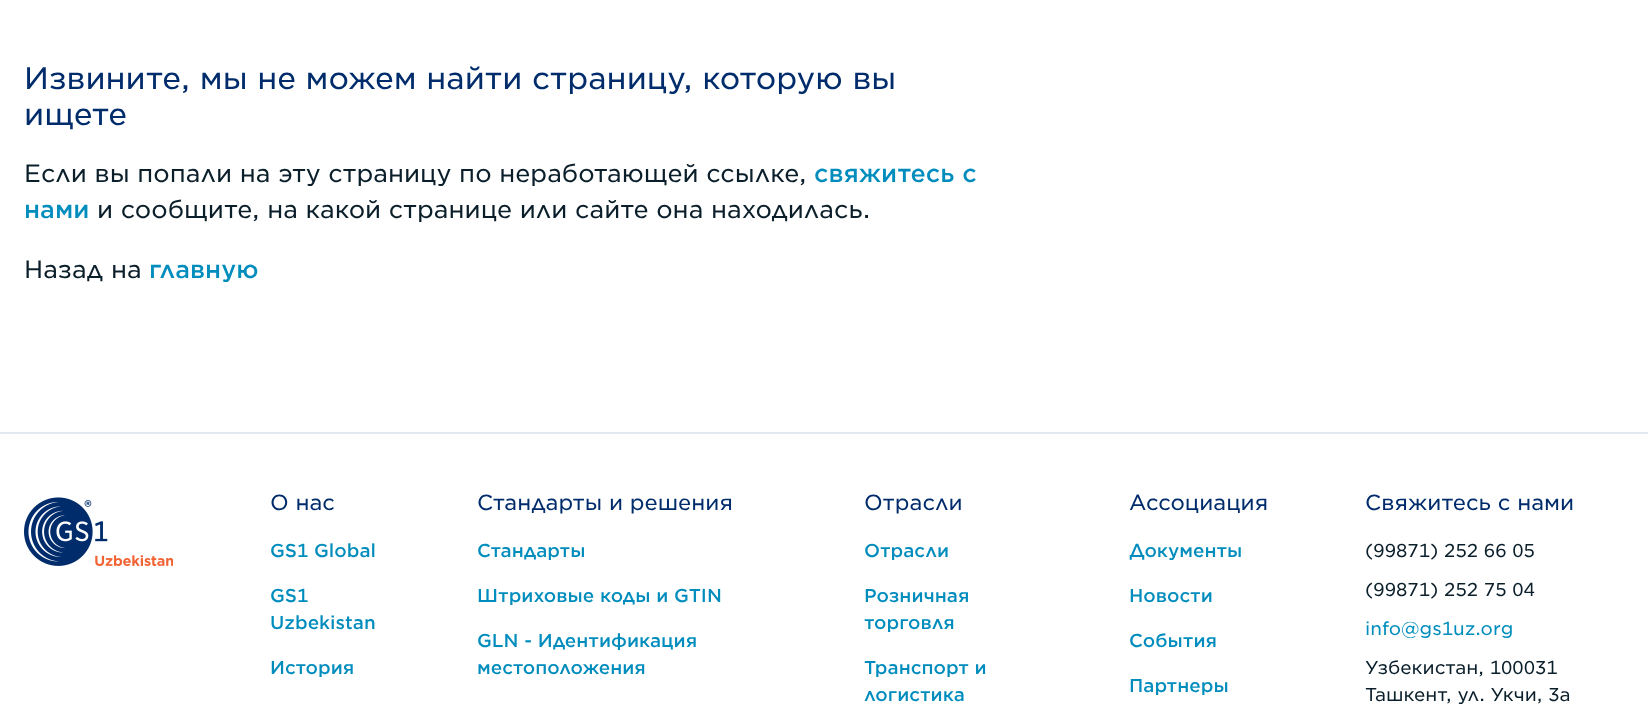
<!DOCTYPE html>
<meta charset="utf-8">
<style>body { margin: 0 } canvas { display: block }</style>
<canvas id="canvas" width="1648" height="713"></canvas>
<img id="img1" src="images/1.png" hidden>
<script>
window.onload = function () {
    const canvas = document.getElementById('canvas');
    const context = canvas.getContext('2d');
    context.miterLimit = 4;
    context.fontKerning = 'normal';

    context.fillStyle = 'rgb(255, 255, 255)';
    context.fillRect(0, 0, 1648, 713);
    context.fillStyle = 'rgb(226, 232, 240)';
    context.fillRect(0, 432, 1648, 2);
    context.drawImage(document.getElementById('img1'), 24, 497, 149, 69);
    context.font = '300 30px "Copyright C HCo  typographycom"';
    context.fillStyle = 'rgb(0, 44, 108)';
    context.fillText('Извините, мы не можем найти страницу, которую вы', 24, 89);
    context.fillText('ищете', 24, 125);
    context.font = '300 24px "Copyright C HCo  typographycom"';
    context.fillStyle = 'rgb(11, 31, 43)';
    context.fillText('Если вы попали на эту страницу по неработающей ссылке,', 24, 182);
    context.font = '300 24px "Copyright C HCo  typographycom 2"';
    context.fillStyle = 'rgb(0, 141, 189)';
    context.fillText('свяжитесь с', 814, 182);
    context.fillText('нами', 24, 218);
    context.font = '300 24px "Copyright C HCo  typographycom"';
    context.fillStyle = 'rgb(11, 31, 43)';
    context.fillText('и сообщите, на какой странице или сайте она находилась.', 97, 218);
    context.fillText('Назад на', 24, 278);
    context.font = '300 24px "Copyright C HCo  typographycom 2"';
    context.fillStyle = 'rgb(0, 141, 189)';
    context.fillText('главную', 149, 278);
    context.font = '300 21px "Copyright C HCo  typographycom"';
    context.fillStyle = 'rgb(0, 44, 108)';
    context.fillText('О нас', 270, 510);
    context.font = '300 18px "Copyright C HCo  typographycom 2"';
    context.fillStyle = 'rgb(0, 141, 189)';
    context.fillText('GS1 Global', 270, 557);
    context.fillText('GS1', 270, 602);
    context.fillText('Uzbekistan', 270, 629);
    context.fillText('История', 270, 674);
    context.font = '300 21px "Copyright C HCo  typographycom"';
    context.fillStyle = 'rgb(0, 44, 108)';
    context.fillText('Стандарты и решения', 477, 510);
    context.font = '300 18px "Copyright C HCo  typographycom 2"';
    context.fillStyle = 'rgb(0, 141, 189)';
    context.fillText('Стандарты', 477, 557);
    context.fillText('Штриховые коды и GTIN', 477, 602);
    context.fillText('GLN - Идентификация', 477, 647);
    context.fillText('местоположения', 477, 674);
    context.font = '300 21px "Copyright C HCo  typographycom"';
    context.fillStyle = 'rgb(0, 44, 108)';
    context.fillText('Отрасли', 864, 510);
    context.font = '300 18px "Copyright C HCo  typographycom 2"';
    context.fillStyle = 'rgb(0, 141, 189)';
    context.fillText('Отрасли', 864, 557);
    context.fillText('Розничная', 864, 602);
    context.fillText('торговля', 864, 629);
    context.fillText('Транспорт и', 864, 674);
    context.fillText('логистика', 864, 701);
    context.font = '300 21px "Copyright C HCo  typographycom"';
    context.fillStyle = 'rgb(0, 44, 108)';
    context.fillText('Ассоциация', 1129, 510);
    context.font = '300 18px "Copyright C HCo  typographycom 2"';
    context.fillStyle = 'rgb(0, 141, 189)';
    context.fillText('Документы', 1129, 557);
    context.fillText('Новости', 1129, 602);
    context.fillText('События', 1129, 647);
    context.fillText('Партнеры', 1129, 692);
    context.font = '300 21px "Copyright C HCo  typographycom"';
    context.fillStyle = 'rgb(0, 44, 108)';
    context.fillText('Свяжитесь с нами', 1365, 510);
    context.font = '300 18px "Copyright C HCo  typographycom"';
    context.fillStyle = 'rgb(11, 31, 43)';
    context.fillText('(99871) 252 66 05', 1365, 557);
    context.fillText('(99871) 252 75 04', 1365, 596);
    context.fillStyle = 'rgb(0, 141, 189)';
    context.fillText('info@gs1uz.org', 1365, 635);
    context.fillStyle = 'rgb(11, 31, 43)';
    context.fillText('Узбекистан, 100031', 1365, 674);
    context.fillText('Ташкент, ул. Укчи, 3а', 1365, 701);
};
</script>
